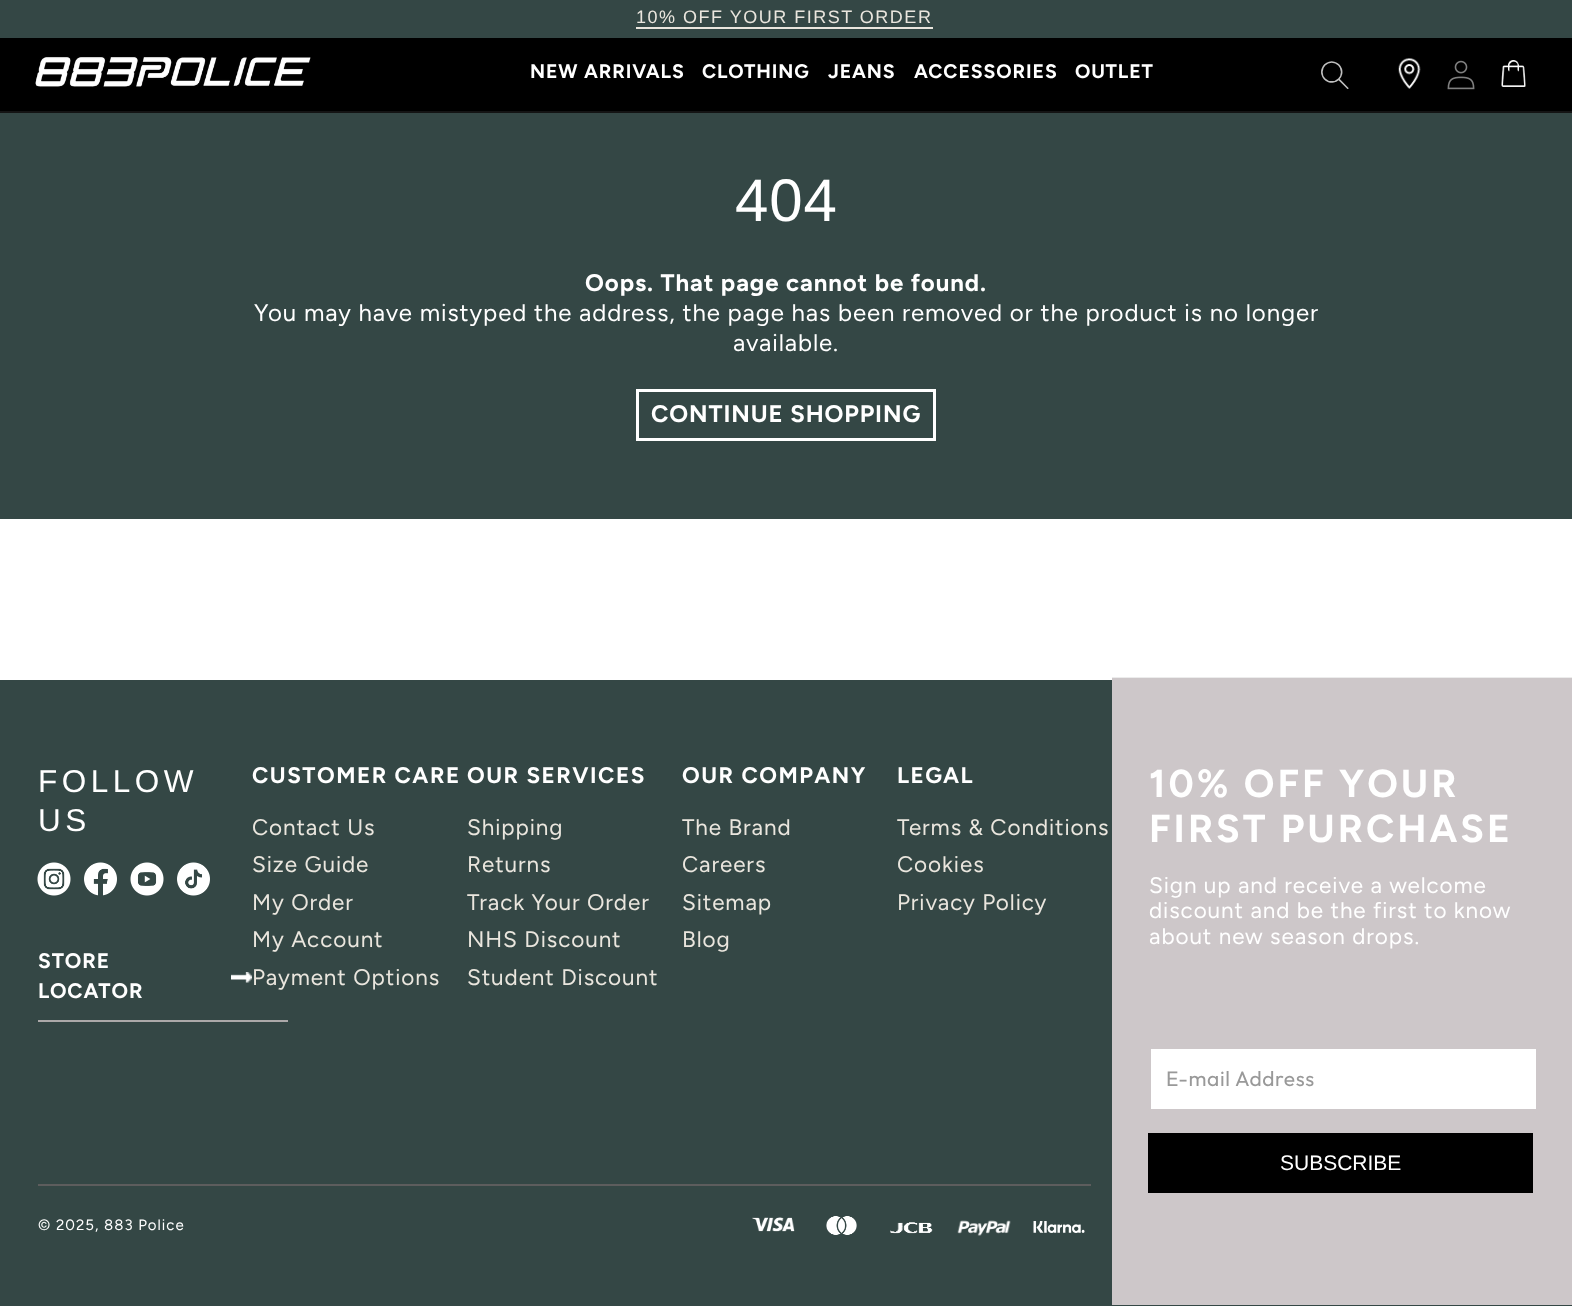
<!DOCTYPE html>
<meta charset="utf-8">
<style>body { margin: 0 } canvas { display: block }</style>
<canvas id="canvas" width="1572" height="1306"></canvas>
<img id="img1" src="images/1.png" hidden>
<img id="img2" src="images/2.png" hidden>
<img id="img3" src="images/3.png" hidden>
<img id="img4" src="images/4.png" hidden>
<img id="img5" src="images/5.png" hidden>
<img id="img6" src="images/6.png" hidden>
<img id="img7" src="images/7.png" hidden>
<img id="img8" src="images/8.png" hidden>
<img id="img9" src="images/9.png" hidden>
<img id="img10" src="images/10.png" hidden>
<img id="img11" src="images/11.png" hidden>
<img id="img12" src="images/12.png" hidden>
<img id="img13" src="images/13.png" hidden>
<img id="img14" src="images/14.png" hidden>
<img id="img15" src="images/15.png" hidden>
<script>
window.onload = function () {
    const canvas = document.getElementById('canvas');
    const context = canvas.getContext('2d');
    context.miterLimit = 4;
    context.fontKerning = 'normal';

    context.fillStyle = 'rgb(255, 255, 255)';
    context.fillRect(0, 0, 1572, 1306);
    context.fillStyle = 'rgb(52, 71, 69)';
    context.fillRect(0, 0, 1572, 38);
    context.fillStyle = 'rgb(234, 230, 222)';
    context.fillRect(636, 27, 297, 2);
    context.fillStyle = 'rgb(0, 0, 0)';
    context.fillRect(0, 38, 1572, 73);
    context.fillStyle = 'rgb(20, 20, 20)';
    context.fillRect(0, 111, 1572, 2);
    context.drawImage(document.getElementById('img1'), 35, 56, 276, 31);
    context.drawImage(document.getElementById('img2'), 1321, 61, 28, 28);
    context.drawImage(document.getElementById('img3'), 1398, 58, 23, 31);
    context.drawImage(document.getElementById('img4'), 1447, 60, 28, 30);
    context.drawImage(document.getElementById('img5'), 1501, 60, 25, 27);
    context.fillStyle = 'rgb(52, 71, 69)';
    context.fillRect(0, 113, 1572, 406);
    context.strokeStyle = 'rgb(255, 255, 255)';
    context.lineWidth = 3;
    context.strokeRect(637.5, 390.5, 297, 49);
    context.fillRect(0, 680, 1572, 626);
    context.drawImage(document.getElementById('img6'), 37, 862, 34, 34);
    context.drawImage(document.getElementById('img7'), 84, 862, 33, 34);
    context.drawImage(document.getElementById('img8'), 130, 862, 34, 34);
    context.drawImage(document.getElementById('img9'), 177, 862, 33, 34);
    context.drawImage(document.getElementById('img10'), 231, 972, 21, 11);
    context.fillStyle = 'rgb(172, 169, 169)';
    context.fillRect(38, 1020, 250, 2);
    context.fillStyle = 'rgb(93, 93, 93)';
    context.fillRect(38, 1184, 1053, 2);
    context.drawImage(document.getElementById('img11'), 752, 1217, 43, 15);
    context.drawImage(document.getElementById('img12'), 826, 1216, 31, 19);
    context.drawImage(document.getElementById('img13'), 890, 1222, 43, 12);
    context.drawImage(document.getElementById('img14'), 957, 1220, 54, 16);
    context.drawImage(document.getElementById('img15'), 1033, 1221, 52, 12);
    context.fillStyle = 'rgb(236, 236, 236)';
    context.fillRect(1112, 677, 460, 1);
    context.fillStyle = 'rgb(205, 199, 201)';
    context.fillRect(1112, 678, 460, 627);
    context.fillStyle = 'rgb(255, 255, 255)';
    context.fillRect(1151, 1049, 385, 60);
    context.fillStyle = 'rgb(0, 0, 0)';
    context.fillRect(1148, 1133, 385, 60);
    context.letterSpacing = '1.5px';
    context.font = '18px Liberation Sans';
    context.fillStyle = 'rgb(234, 230, 222)';
    context.fillText('10% OFF YOUR FIRST ORDER', 636, 23);
    context.letterSpacing = '0.9px';
    context.font = 'bold 19.5px Figtree';
    context.fillStyle = 'rgb(255, 255, 255)';
    context.fillText('NEW ARRIVALS', 530, 78);
    context.fillText('CLOTHING', 702, 78);
    context.fillText('JEANS', 828, 78);
    context.fillText('ACCESSORIES', 914, 78);
    context.fillText('OUTLET', 1075, 78);
    context.font = '60px Liberation Sans';
    context.fillText('404', 735, 221);
    context.font = 'bold 24px Figtree';
    context.fillText('Oops. That page cannot be found.', 585, 291);
    context.font = '24px Figtree';
    context.fillText('You may have mistyped the address, the page has been removed or the product is no longer', 254, 321);
    context.fillText('available.', 733, 351);
    context.font = 'bold 24px Figtree';
    context.fillText('CONTINUE SHOPPING', 651, 422);
    context.letterSpacing = '4.5px';
    context.font = '31.5px Liberation Sans';
    context.fillText('FOLLOW', 38, 792);
    context.fillText('US', 38, 831);
    context.letterSpacing = '0.9px';
    context.font = 'bold 21px Figtree';
    context.fillText('STORE', 38, 968);
    context.fillText('LOCATOR', 38, 998);
    context.letterSpacing = '1.5px';
    context.font = 'bold 22.5px Figtree';
    context.fillText('CUSTOMER CARE', 252, 783);
    context.letterSpacing = '0.9px';
    context.font = '22.5px Figtree';
    context.fillStyle = 'rgb(234, 230, 222)';
    context.fillText('Contact Us', 252, 835);
    context.fillText('Size Guide', 252, 872);
    context.fillText('My Order', 252, 910);
    context.fillText('My Account', 252, 947);
    context.fillText('Payment Options', 252, 985);
    context.letterSpacing = '1.5px';
    context.font = 'bold 22.5px Figtree';
    context.fillStyle = 'rgb(255, 255, 255)';
    context.fillText('OUR SERVICES', 467, 783);
    context.letterSpacing = '0.9px';
    context.font = '22.5px Figtree';
    context.fillStyle = 'rgb(234, 230, 222)';
    context.fillText('Shipping', 467, 835);
    context.fillText('Returns', 467, 872);
    context.fillText('Track Your Order', 467, 910);
    context.fillText('NHS Discount', 467, 947);
    context.fillText('Student Discount', 467, 985);
    context.letterSpacing = '1.5px';
    context.font = 'bold 22.5px Figtree';
    context.fillStyle = 'rgb(255, 255, 255)';
    context.fillText('OUR COMPANY', 682, 783);
    context.letterSpacing = '0.9px';
    context.font = '22.5px Figtree';
    context.fillStyle = 'rgb(234, 230, 222)';
    context.fillText('The Brand', 682, 835);
    context.fillText('Careers', 682, 872);
    context.fillText('Sitemap', 682, 910);
    context.fillText('Blog', 682, 947);
    context.letterSpacing = '1.5px';
    context.font = 'bold 22.5px Figtree';
    context.fillStyle = 'rgb(255, 255, 255)';
    context.fillText('LEGAL', 897, 783);
    context.letterSpacing = '0.9px';
    context.font = '22.5px Figtree';
    context.fillStyle = 'rgb(234, 230, 222)';
    context.fillText('Terms & Conditions', 897, 835);
    context.fillText('Cookies', 897, 872);
    context.fillText('Privacy Policy', 897, 910);
    context.letterSpacing = '1px';
    context.font = '15px Figtree';
    context.fillStyle = 'rgb(255, 255, 255)';
    context.fillText('© 2025, 883 Police', 38, 1230);
    context.letterSpacing = '3px';
    context.font = 'bold 39px Figtree';
    context.fillText('10% OFF YOUR', 1149, 797);
    context.fillText('FIRST PURCHASE', 1149, 842);
    context.letterSpacing = '0.9px';
    context.font = '22.5px Figtree';
    context.fillText('Sign up and receive a welcome', 1149, 893);
    context.fillText('discount and be the first to know', 1149, 918);
    context.fillText('about new season drops.', 1149, 944);
    context.letterSpacing = '0.6px';
    context.font = '21px Outfit';
    context.fillStyle = 'rgb(153, 153, 153)';
    context.fillText('E-mail Address', 1166, 1086);
    context.letterSpacing = '0px';
    context.font = '21px Liberation Sans';
    context.fillStyle = 'rgb(255, 255, 255)';
    context.fillText('SUBSCRIBE', 1280, 1170);
};
</script>
